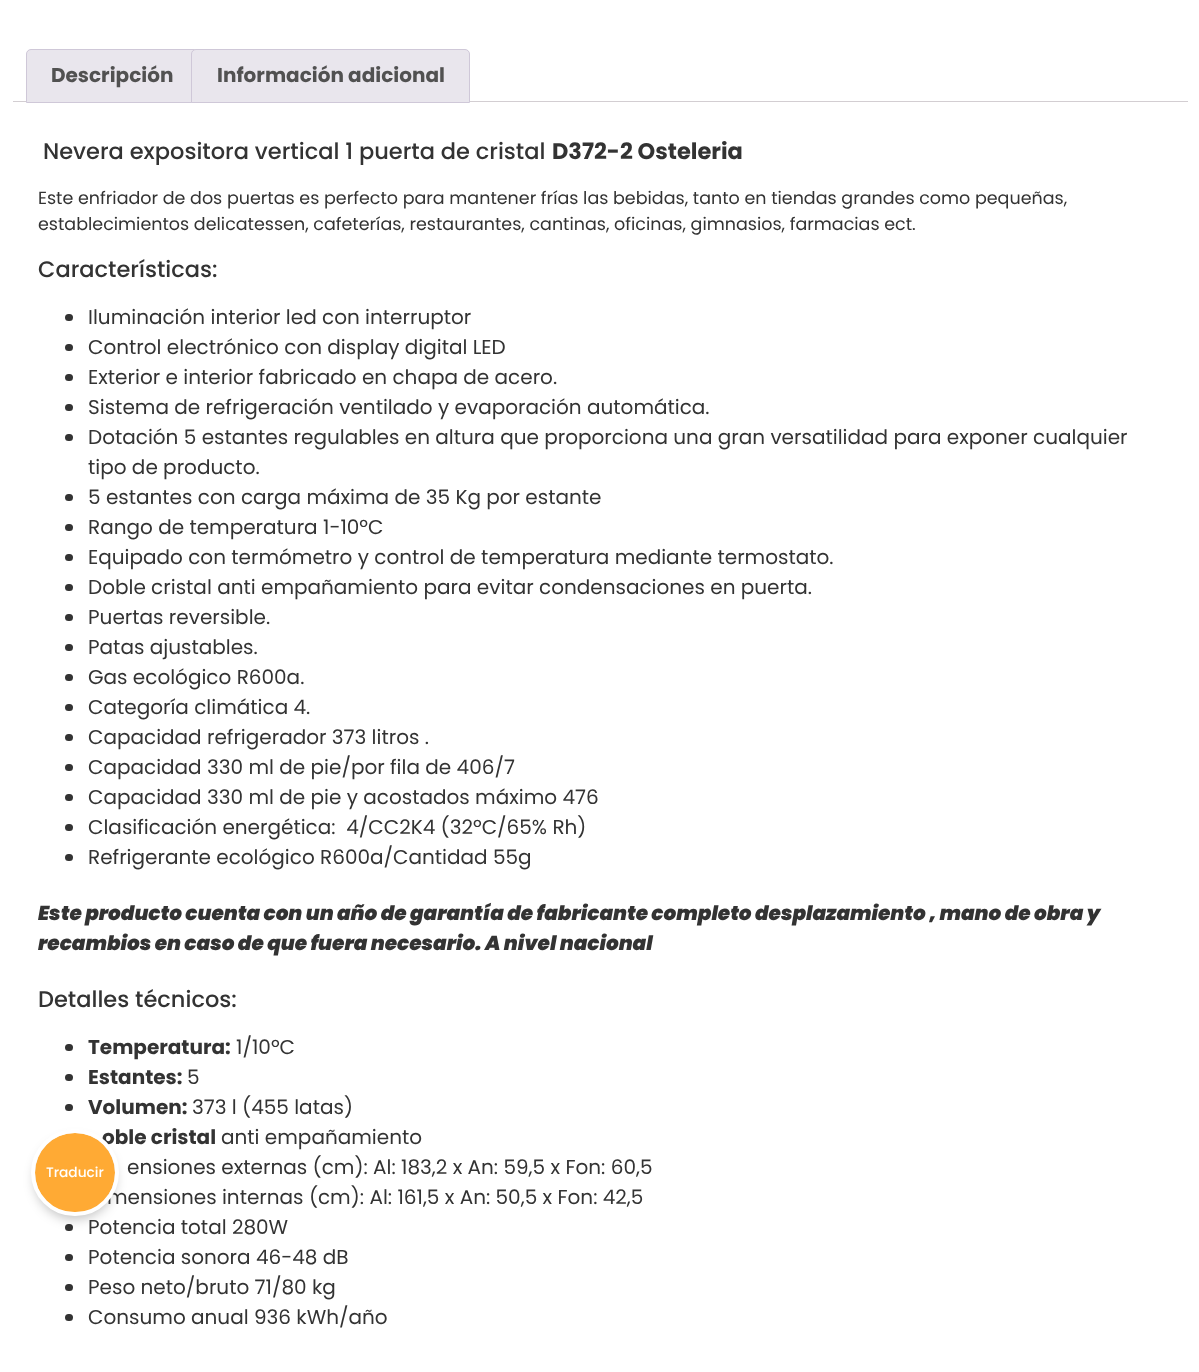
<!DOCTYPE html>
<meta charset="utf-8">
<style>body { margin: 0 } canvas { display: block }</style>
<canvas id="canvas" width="1199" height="1372"></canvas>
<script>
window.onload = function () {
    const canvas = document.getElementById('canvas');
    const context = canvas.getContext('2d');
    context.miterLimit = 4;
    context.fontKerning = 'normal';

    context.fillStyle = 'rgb(255, 255, 255)';
    context.fillRect(0, 0, 1199, 1372);
    context.fillStyle = 'rgb(211, 206, 210)';
    context.fillRect(13, 101, 1175, 1);
    context.fillStyle = 'rgb(233, 230, 237)';
    context.beginPath();
    context.roundRect(26.5, 49.5, 172, 53, [4.5, 4.5, 0, 0]);
    context.fill();
    context.strokeStyle = 'rgb(207, 200, 216)';
    context.stroke();
    context.beginPath();
    context.roundRect(191.5, 49.5, 278, 53, [4.5, 4.5, 0, 0]);
    context.fill();
    context.stroke();
    context.fillStyle = 'rgb(51, 51, 51)';
    context.beginPath();
    context.roundRect(65, 314, 8, 7, 3.5);
    context.fill();
    context.beginPath();
    context.roundRect(65, 344, 8, 7, 3.5);
    context.fill();
    context.beginPath();
    context.roundRect(65, 374, 8, 7, 3.5);
    context.fill();
    context.beginPath();
    context.roundRect(65, 404, 8, 7, 3.5);
    context.fill();
    context.beginPath();
    context.roundRect(65, 434, 8, 7, 3.5);
    context.fill();
    context.beginPath();
    context.roundRect(65, 494, 8, 7, 3.5);
    context.fill();
    context.beginPath();
    context.roundRect(65, 524, 8, 7, 3.5);
    context.fill();
    context.beginPath();
    context.roundRect(65, 554, 8, 7, 3.5);
    context.fill();
    context.beginPath();
    context.roundRect(65, 584, 8, 7, 3.5);
    context.fill();
    context.beginPath();
    context.roundRect(65, 614, 8, 7, 3.5);
    context.fill();
    context.beginPath();
    context.roundRect(65, 644, 8, 7, 3.5);
    context.fill();
    context.beginPath();
    context.roundRect(65, 674, 8, 7, 3.5);
    context.fill();
    context.beginPath();
    context.roundRect(65, 704, 8, 7, 3.5);
    context.fill();
    context.beginPath();
    context.roundRect(65, 734, 8, 7, 3.5);
    context.fill();
    context.beginPath();
    context.roundRect(65, 764, 8, 7, 3.5);
    context.fill();
    context.beginPath();
    context.roundRect(65, 794, 8, 7, 3.5);
    context.fill();
    context.beginPath();
    context.roundRect(65, 824, 8, 7, 3.5);
    context.fill();
    context.beginPath();
    context.roundRect(65, 854, 8, 7, 3.5);
    context.fill();
    context.beginPath();
    context.roundRect(65, 1044, 8, 7, 3.5);
    context.fill();
    context.beginPath();
    context.roundRect(65, 1074, 8, 7, 3.5);
    context.fill();
    context.beginPath();
    context.roundRect(65, 1104, 8, 7, 3.5);
    context.fill();
    context.beginPath();
    context.roundRect(65, 1224, 8, 7, 3.5);
    context.fill();
    context.beginPath();
    context.roundRect(65, 1254, 8, 7, 3.5);
    context.fill();
    context.beginPath();
    context.roundRect(65, 1284, 8, 7, 3.5);
    context.fill();
    context.beginPath();
    context.roundRect(65, 1314, 8, 7, 3.5);
    context.fill();
    context.fillStyle = 'rgba(0, 0, 0, 0.25)';
    context.filter = 'blur(6px)';
    context.beginPath();
    context.roundRect(35, 1139, 80, 80, 40);
    context.fill();
    context.filter = 'none';
    context.font = 'bold 20px Poppins';
    context.fillStyle = 'rgb(81, 81, 81)';
    context.fillText('Descripción', 51, 82);
    context.fillText('Información adicional', 217, 82);
    context.font = '500 22.5px Poppins';
    context.fillStyle = 'rgb(51, 51, 51)';
    context.fillText('Nevera expositora vertical 1 puerta de cristal', 43, 159);
    context.font = 'bold 22.5px Poppins';
    context.fillText('D372-2 Osteleria', 552, 159);
    context.font = '17.5px Poppins';
    context.fillText('Este enfriador de dos puertas es perfecto para mantener frías las bebidas, tanto en tiendas grandes como pequeñas,', 38, 204);
    context.fillText('establecimientos delicatessen, cafeterías, restaurantes, cantinas, oficinas, gimnasios, farmacias ect.', 38, 230);
    context.font = '500 22.5px Poppins';
    context.fillText('Características:', 38, 277);
    context.font = '20px Poppins';
    context.fillText('Iluminación interior led con interruptor', 88, 324);
    context.fillText('Control electrónico con display digital LED', 88, 354);
    context.fillText('Exterior e interior fabricado en chapa de acero.', 88, 384);
    context.fillText('Sistema de refrigeración ventilado y evaporación automática.', 88, 414);
    context.fillText('Dotación 5 estantes regulables en altura que proporciona una gran versatilidad para exponer cualquier', 88, 444);
    context.fillText('tipo de producto.', 88, 474);
    context.fillText('5 estantes con carga máxima de 35 Kg por estante', 88, 504);
    context.fillText('Rango de temperatura 1-10ºC', 88, 534);
    context.fillText('Equipado con termómetro y control de temperatura mediante termostato.', 88, 564);
    context.fillText('Doble cristal anti empañamiento para evitar condensaciones en puerta.', 88, 594);
    context.fillText('Puertas reversible.', 88, 624);
    context.fillText('Patas ajustables.', 88, 654);
    context.fillText('Gas ecológico R600a.', 88, 684);
    context.fillText('Categoría climática 4.', 88, 714);
    context.fillText('Capacidad refrigerador 373 litros .', 88, 744);
    context.fillText('Capacidad 330 ml de pie/por fila de 406/7', 88, 774);
    context.fillText('Capacidad 330 ml de pie y acostados máximo 476', 88, 804);
    context.fillText('Clasificación energética:  4/CC2K4 (32ºC/65% Rh)', 88, 834);
    context.fillText('Refrigerante ecológico R600a/Cantidad 55g', 88, 864);
    context.font = 'italic 900 20px Poppins';
    context.fillText('Este producto cuenta con un año de garantía de fabricante completo desplazamiento , mano de obra y', 38, 920);
    context.fillText('recambios en caso de que fuera necesario. A nivel nacional', 38, 950);
    context.font = '500 22.5px Poppins';
    context.fillText('Detalles técnicos:', 38, 1007);
    context.font = 'bold 20px Poppins';
    context.fillText('Temperatura:', 88, 1054);
    context.font = '20px Poppins';
    context.fillText('1/10ºC', 236, 1054);
    context.font = 'bold 20px Poppins';
    context.fillText('Estantes:', 88, 1084);
    context.font = '20px Poppins';
    context.fillText('5', 187, 1084);
    context.font = 'bold 20px Poppins';
    context.fillText('Volumen:', 88, 1114);
    context.font = '20px Poppins';
    context.fillText('373 l (455 latas)', 192, 1114);
    context.font = 'bold 20px Poppins';
    context.fillText('oble cristal', 102, 1144);
    context.font = '20px Poppins';
    context.fillText('anti empañamiento', 221, 1144);
    context.fillText('ensiones externas (cm): Al: 183,2 x An: 59,5 x Fon: 60,5', 127, 1174);
    context.fillText('mensiones internas (cm): Al: 161,5 x An: 50,5 x Fon: 42,5', 107, 1204);
    context.fillText('Potencia total 280W', 88, 1234);
    context.fillText('Potencia sonora 46-48 dB', 88, 1264);
    context.fillText('Peso neto/bruto 71/80 kg', 88, 1294);
    context.fillText('Consumo anual 936 kWh/año', 88, 1324);
    context.fillStyle = 'rgb(255, 170, 52)';
    context.beginPath();
    context.arc(75, 1173, 40, 0, 2 * Math.PI);
    context.fill();
    context.beginPath();
    context.roundRect(33, 1131, 84, 83, 41.5);
    context.strokeStyle = 'rgb(255, 255, 255)';
    context.lineWidth = 4;
    context.stroke();
    context.font = '500 13.75px Poppins';
    context.fillStyle = 'rgb(255, 255, 255)';
    context.fillText('Traducir', 46, 1177);
};
</script>
